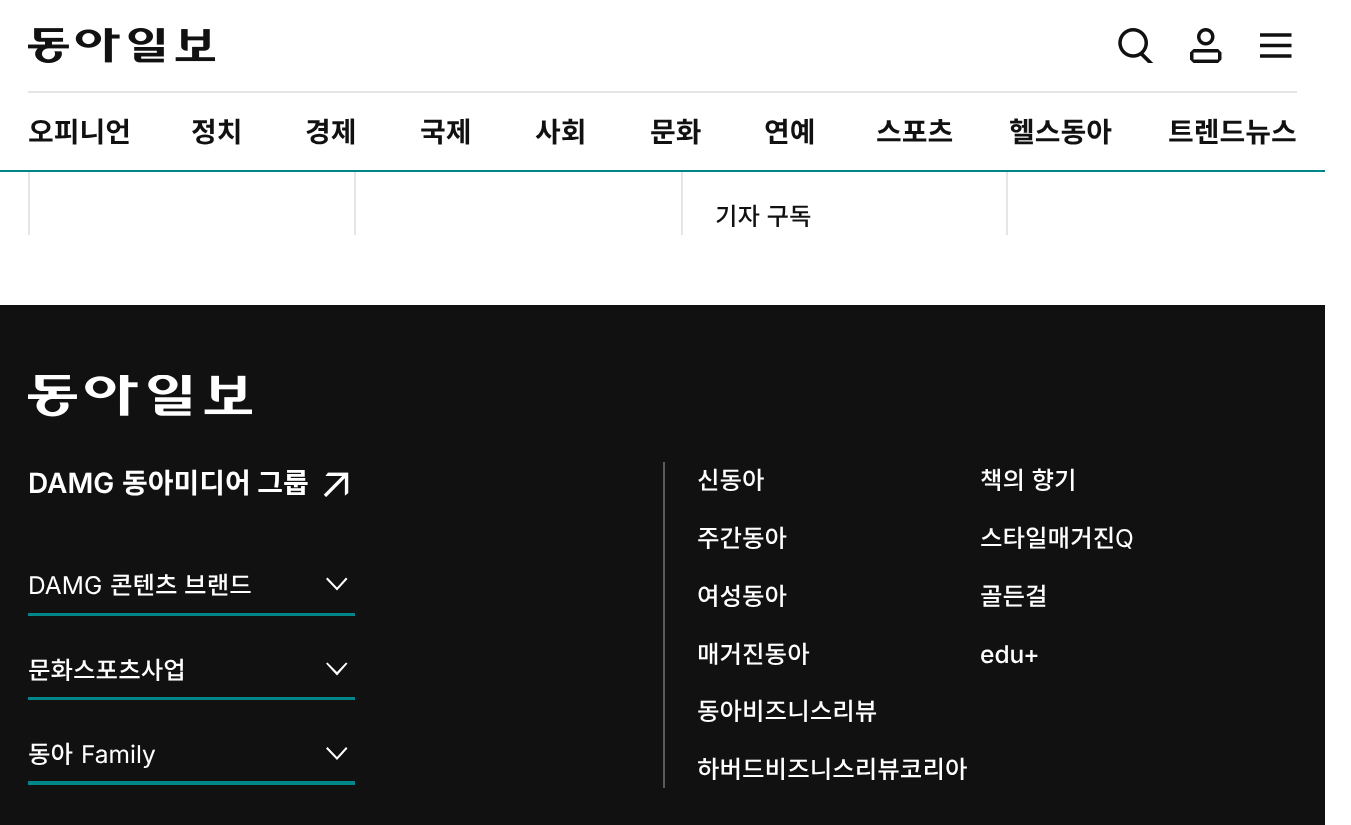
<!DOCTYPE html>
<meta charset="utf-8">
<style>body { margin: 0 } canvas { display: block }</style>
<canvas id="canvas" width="1351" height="825"></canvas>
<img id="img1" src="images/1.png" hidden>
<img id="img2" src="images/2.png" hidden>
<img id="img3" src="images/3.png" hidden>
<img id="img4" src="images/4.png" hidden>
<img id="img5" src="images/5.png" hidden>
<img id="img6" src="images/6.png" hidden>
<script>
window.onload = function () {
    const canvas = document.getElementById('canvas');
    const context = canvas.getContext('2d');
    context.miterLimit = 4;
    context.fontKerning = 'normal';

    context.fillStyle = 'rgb(255, 255, 255)';
    context.fillRect(0, 0, 1351, 825);
    context.fillStyle = 'rgb(0, 134, 137)';
    context.fillRect(0, 170, 1325, 2);
    context.drawImage(document.getElementById('img1'), 28, 28, 187, 35);
    context.drawImage(document.getElementById('img2'), 1118, 28, 36, 35);
    context.drawImage(document.getElementById('img3'), 1190, 28, 32, 35);
    context.drawImage(document.getElementById('img4'), 1260, 33, 32, 25);
    context.fillStyle = 'rgb(229, 229, 229)';
    context.fillRect(28, 91, 1269, 2);
    context.fillRect(28, 172, 2, 63);
    context.fillRect(354, 172, 2, 63);
    context.fillRect(681, 172, 2, 63);
    context.fillRect(1006, 172, 2, 63);
    context.fillStyle = 'rgb(17, 17, 17)';
    context.fillRect(0, 305, 1325, 520);
    context.drawImage(document.getElementById('img5'), 28, 375, 224, 42);
    context.drawImage(document.getElementById('img6'), 323, 472, 26, 25);
    context.fillStyle = 'rgb(255, 255, 255)';
    context.beginPath();
    context.moveTo(337, 587.5);
    context.lineTo(346, 577.5);
    context.lineTo(347.5, 579);
    context.lineTo(337, 590.5);
    context.lineTo(326, 579);
    context.lineTo(327.5, 577.5);
    context.closePath();
    context.fill('evenodd');
    context.fillStyle = 'rgb(0, 134, 137)';
    context.fillRect(28, 613, 327, 3);
    context.fillStyle = 'rgb(255, 255, 255)';
    context.beginPath();
    context.moveTo(337, 672);
    context.lineTo(346, 662.5);
    context.lineTo(347.5, 663.5);
    context.lineTo(337, 675.5);
    context.lineTo(326, 663.5);
    context.lineTo(327.5, 662.5);
    context.closePath();
    context.fill('evenodd');
    context.fillStyle = 'rgb(0, 134, 137)';
    context.fillRect(28, 697, 327, 3);
    context.fillStyle = 'rgb(255, 255, 255)';
    context.beginPath();
    context.moveTo(337, 757);
    context.lineTo(346, 747);
    context.lineTo(347.5, 748.5);
    context.lineTo(337, 760);
    context.lineTo(326, 748.5);
    context.lineTo(327.5, 747);
    context.closePath();
    context.fill('evenodd');
    context.fillStyle = 'rgb(0, 134, 137)';
    context.fillRect(28, 781, 327, 4);
    context.fillStyle = 'rgb(90, 90, 90)';
    context.fillRect(663, 462, 2, 326);
    context.font = 'bold 28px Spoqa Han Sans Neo';
    context.fillStyle = 'rgb(17, 17, 17)';
    context.fillText('오피니언', 28, 142);
    context.fillText('정치', 191, 142);
    context.fillText('경제', 305, 142);
    context.fillText('국제', 420, 142);
    context.fillText('사회', 535, 142);
    context.fillText('문화', 650, 142);
    context.fillText('연예', 764, 142);
    context.fillText('스포츠', 876, 142);
    context.fillText('헬스동아', 1009, 142);
    context.fillText('트렌드뉴스', 1168, 142);
    context.wordSpacing = '1px';
    context.font = '500 24.5px Spoqa Han Sans Neo';
    context.fillText('기자 구독', 715, 225);
    context.wordSpacing = '0px';
    context.font = '600 28px Inter';
    context.fillStyle = 'rgb(255, 255, 255)';
    context.fillText('DAMG', 28, 493);
    context.font = 'bold 28px Spoqa Han Sans Neo';
    context.fillText('동아미디어 그룹', 122, 493);
    context.font = '24.5px Inter';
    context.fillText('DAMG', 28, 594);
    context.wordSpacing = '1px';
    context.font = '500 24.5px Spoqa Han Sans Neo';
    context.fillText('콘텐츠 브랜드', 110, 594);
    context.wordSpacing = '0px';
    context.fillText('문화스포츠사업', 28, 679);
    context.fillText('동아', 28, 763);
    context.font = '24.5px Inter';
    context.fillText('Family', 81, 763);
    context.font = '500 24.5px Spoqa Han Sans Neo';
    context.fillText('신동아', 697, 489);
    context.wordSpacing = '1px';
    context.fillText('책의 향기', 980, 489);
    context.wordSpacing = '0px';
    context.fillText('주간동아', 697, 547);
    context.fillText('스타일매거진', 980, 547);
    context.font = '24.5px Inter';
    context.fillText('Q', 1115, 547);
    context.font = '500 24.5px Spoqa Han Sans Neo';
    context.fillText('여성동아', 697, 605);
    context.fillText('골든걸', 980, 605);
    context.fillText('매거진동아', 697, 663);
    context.font = '500 24.5px Inter';
    context.fillText('edu+', 980, 663);
    context.font = '500 24.5px Spoqa Han Sans Neo';
    context.fillText('동아비즈니스리뷰', 697, 720);
    context.fillText('하버드비즈니스리뷰코리아', 697, 778);
};
</script>
